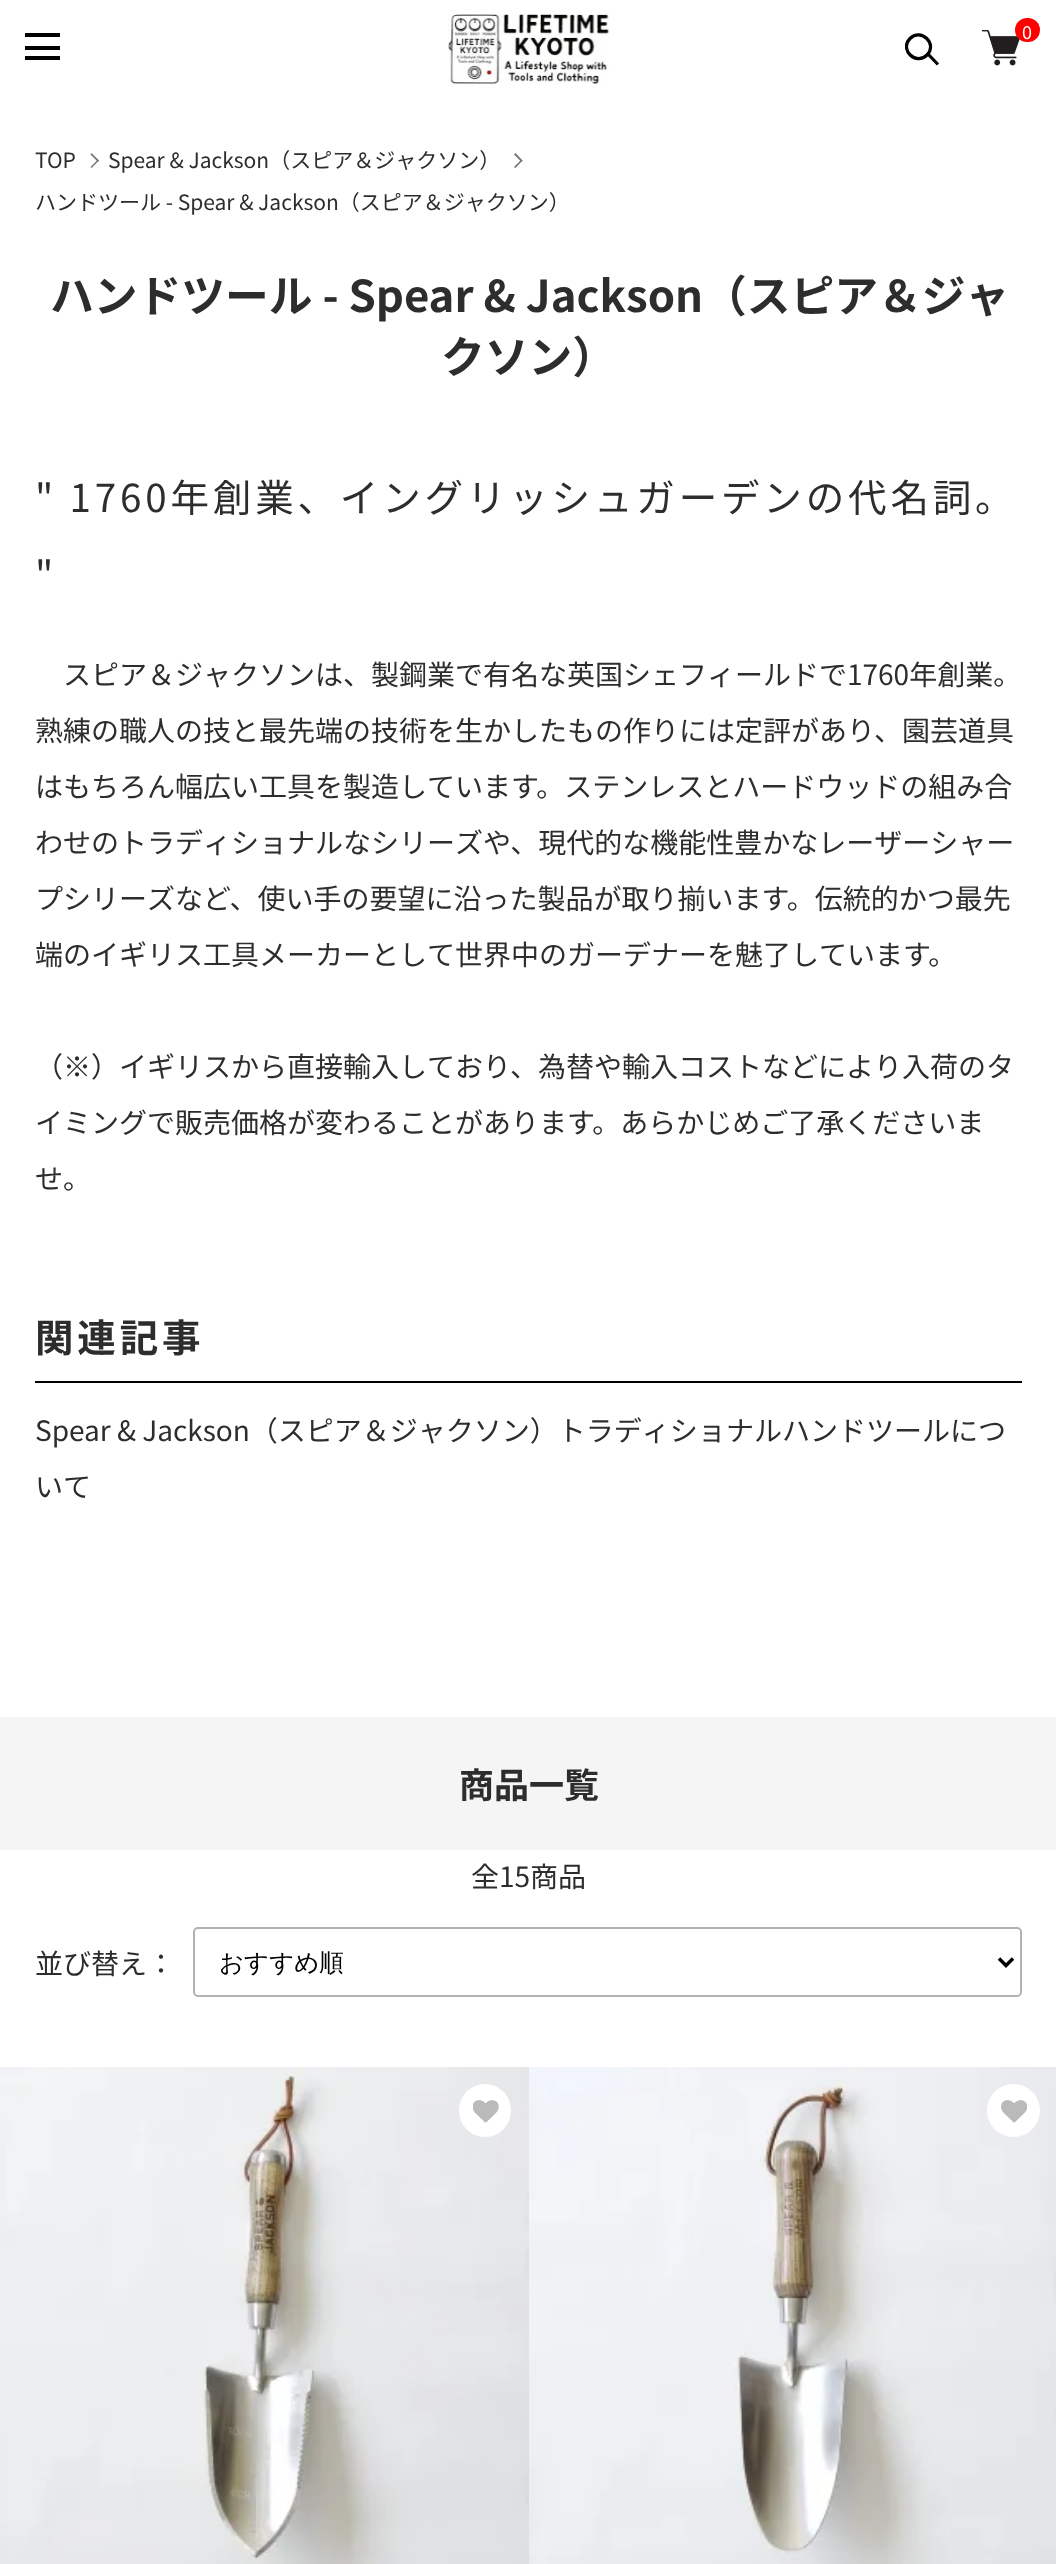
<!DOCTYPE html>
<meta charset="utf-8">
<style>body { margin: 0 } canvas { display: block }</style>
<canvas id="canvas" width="1056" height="2564"></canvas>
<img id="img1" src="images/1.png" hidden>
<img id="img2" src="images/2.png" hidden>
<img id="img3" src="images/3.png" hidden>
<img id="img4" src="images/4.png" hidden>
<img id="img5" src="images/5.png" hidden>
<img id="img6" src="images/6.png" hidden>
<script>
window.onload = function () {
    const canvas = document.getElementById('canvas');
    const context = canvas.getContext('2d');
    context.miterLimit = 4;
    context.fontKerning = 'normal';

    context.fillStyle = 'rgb(255, 255, 255)';
    context.fillRect(0, 0, 1056, 2564);
    context.fillStyle = 'rgb(0, 0, 0)';
    context.fillRect(25, 33, 35, 4);
    context.fillRect(25, 46, 35, 4);
    context.fillRect(25, 56, 35, 4);
    context.drawImage(document.getElementById('img1'), 448, 14, 161, 70);
    context.save();
    context.beginPath();
    context.rect(905, 33, 35, 35);
    context.clip();
    context.beginPath();
    context.moveTo(910, 38.5);
    context.bezierCurveTo(921, 27.5, 938, 44, 927, 55);
    context.bezierCurveTo(916, 66, 899, 49.5, 910, 38.5);
    context.closePath();
    context.strokeStyle = 'rgb(3, 0, 0)';
    context.lineWidth = 3.2;
    context.stroke();
    context.restore();
    context.beginPath();
    context.moveTo(927, 53);
    context.lineTo(938, 64.5);
    context.strokeStyle = 'rgb(3, 0, 0)';
    context.lineWidth = 3.2;
    context.stroke();
    context.drawImage(document.getElementById('img2'), 982, 30, 38, 36);
    context.fillStyle = 'rgb(255, 0, 0)';
    context.beginPath();
    context.roundRect(1015, 18, 25, 24, 12);
    context.fill();
    context.fillStyle = 'rgb(117, 117, 117)';
    context.beginPath();
    context.moveTo(90.5, 154.5);
    context.lineTo(91.5, 153);
    context.lineTo(99, 160.5);
    context.lineTo(98, 162);
    context.closePath();
    context.fill();
    context.beginPath();
    context.moveTo(90.5, 167);
    context.lineTo(98, 159.5);
    context.lineTo(99, 160.5);
    context.lineTo(91.5, 168);
    context.closePath();
    context.fill();
    context.beginPath();
    context.moveTo(514, 154.5);
    context.lineTo(515.5, 153);
    context.lineTo(522.5, 160.5);
    context.lineTo(521.5, 162);
    context.closePath();
    context.fill();
    context.beginPath();
    context.moveTo(514, 167);
    context.lineTo(521.5, 159.5);
    context.lineTo(522.5, 160.5);
    context.lineTo(515.5, 168);
    context.closePath();
    context.fill();
    context.fillStyle = 'rgb(0, 0, 0)';
    context.fillRect(35, 1381, 987, 2);
    context.fillStyle = 'rgb(245, 245, 245)';
    context.fillRect(0, 1717, 1056, 133);
    context.beginPath();
    context.roundRect(194, 1928, 827, 68, 4);
    context.strokeStyle = 'rgb(179, 178, 178)';
    context.lineWidth = 2;
    context.stroke();
    context.beginPath();
    context.moveTo(999, 1958.5);
    context.lineTo(1006, 1965.5);
    context.lineTo(1013, 1958.5);
    context.strokeStyle = 'rgb(0, 0, 0)';
    context.lineWidth = 3.5;
    context.stroke();
    context.drawImage(document.getElementById('img3'), 0, 2067, 529, 497);
    context.fillStyle = 'rgb(255, 255, 255)';
    context.beginPath();
    context.roundRect(459, 2084, 52, 53, 26);
    context.fill();
    context.drawImage(document.getElementById('img4'), 473, 2100, 26, 23);
    context.drawImage(document.getElementById('img5'), 529, 2067, 527, 497);
    context.beginPath();
    context.arc(1013.5, 2110.5, 26.5, 0, 2 * Math.PI);
    context.fill();
    context.drawImage(document.getElementById('img6'), 1001, 2100, 26, 23);
    context.font = '18px Noto Sans JP';
    context.fillText('0', 1022, 39);
    context.font = '21px Noto Sans JP';
    context.fillStyle = 'rgb(45, 45, 45)';
    context.fillText('TOP', 35, 168);
    context.fillText('Spear & Jackson（スピア＆ジャクソン）', 108, 168);
    context.fillText('ハンドツール - Spear & Jackson（スピア＆ジャクソン）', 35, 210);
    context.font = 'bold 43.75px Noto Sans JP';
    context.fillText('ハンドツール - Spear & Jackson（スピア＆ジャ', 50, 312);
    context.fillText('クソン）', 441, 373);
    context.letterSpacing = '3.85px';
    context.font = '38.5px Noto Sans JP';
    context.fillText('" 1760年創業、イングリッシュガーデンの代名詞。', 35, 512);
    context.fillText('"', 35, 589);
    context.letterSpacing = '0px';
    context.font = '28px Noto Sans JP';
    context.fillText('スピア＆ジャクソンは、製鋼業で有名な英国シェフィールドで1760年創業。', 63, 685);
    context.fillText('熟練の職人の技と最先端の技術を生かしたもの作りには定評があり、園芸道具', 35, 741);
    context.fillText('はもちろん幅広い工具を製造しています。ステンレスとハードウッドの組み合', 35, 797);
    context.fillText('わせのトラディショナルなシリーズや、現代的な機能性豊かなレーザーシャー', 35, 853);
    context.fillText('プシリーズなど、使い手の要望に沿った製品が取り揃います。伝統的かつ最先', 35, 909);
    context.fillText('端のイギリス工具メーカーとして世界中のガーデナーを魅了しています。', 35, 965);
    context.fillText('（※）イギリスから直接輸入しており、為替や輸入コストなどにより入荷のタ', 35, 1077);
    context.fillText('イミングで販売価格が変わることがあります。あらかじめご了承くださいま', 35, 1133);
    context.fillText('せ。', 35, 1189);
    context.letterSpacing = '3.85px';
    context.font = 'bold 38.5px Noto Sans JP';
    context.fillText('関連記事', 35, 1352);
    context.letterSpacing = '0px';
    context.font = '28px Noto Sans JP';
    context.fillText('Spear & Jackson（スピア＆ジャクソン）トラディショナルハンドツールにつ', 35, 1441);
    context.fillText('いて', 35, 1497);
    context.font = 'bold 35px Noto Sans JP';
    context.fillText('商品一覧', 459, 1798);
    context.font = '28px Noto Sans JP';
    context.fillText('全15商品', 471, 1887);
    context.fillText('並び替え：', 35, 1974);
    context.font = '500 24.5px WenQuanYi Zen Hei';
    context.fillStyle = 'rgb(0, 0, 0)';
    context.fillText('おすすめ順', 219, 1971);
};
</script>
